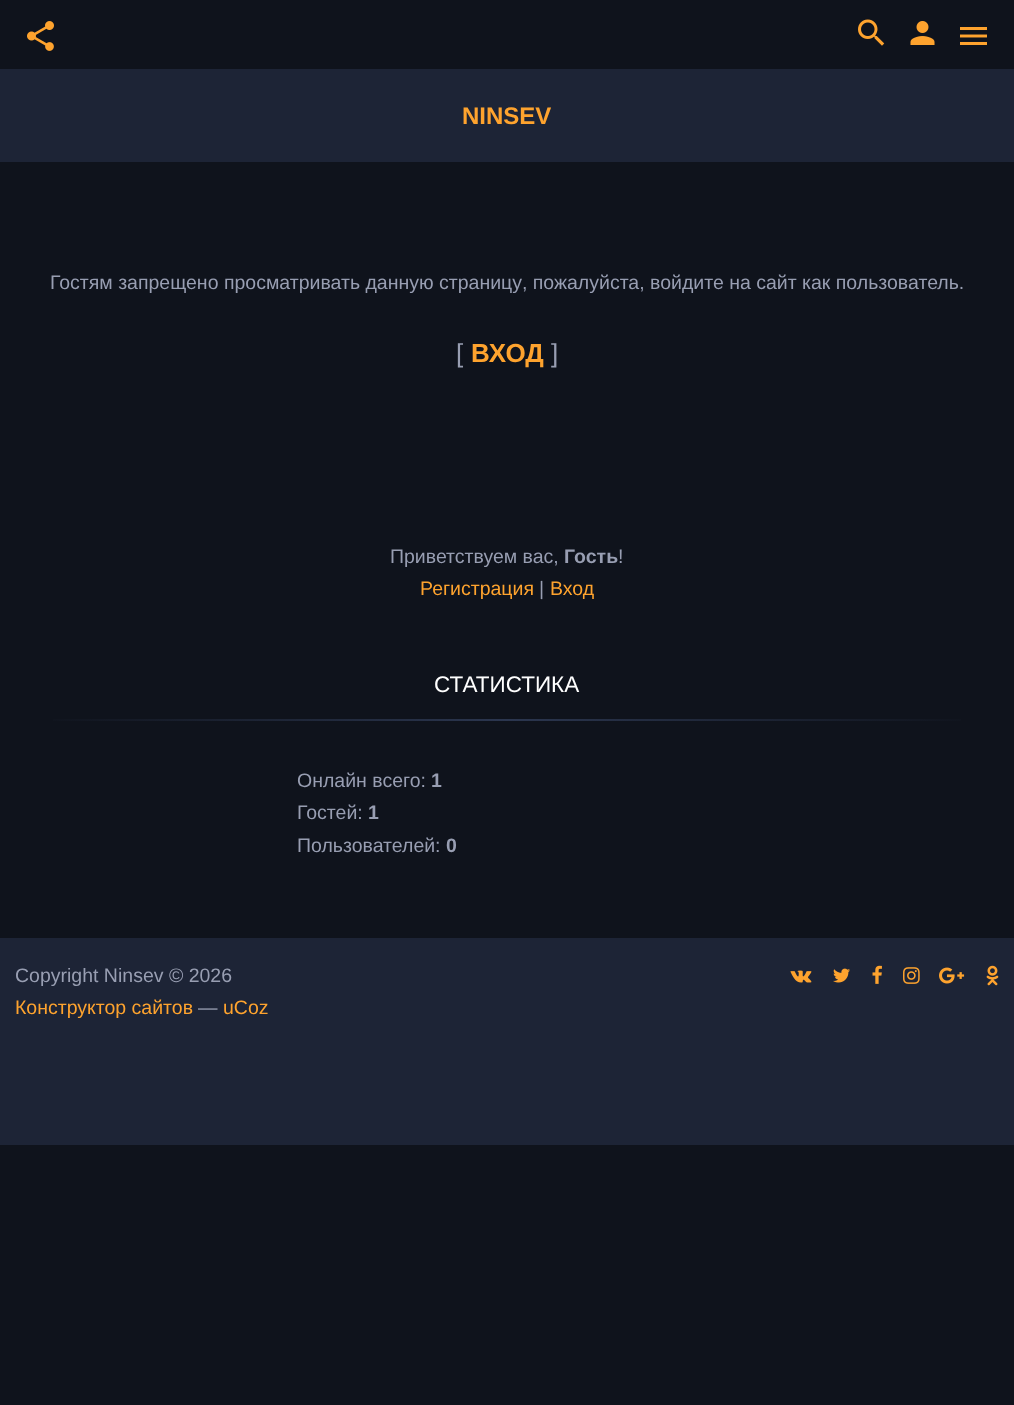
<!DOCTYPE html>
<meta charset="utf-8">
<style>body { margin: 0 } canvas { display: block }</style>
<canvas id="canvas" width="1014" height="1405"></canvas>
<img id="img1" src="images/1.png" hidden>
<img id="img2" src="images/2.png" hidden>
<img id="img3" src="images/3.png" hidden>
<img id="img4" src="images/4.png" hidden>
<img id="img5" src="images/5.png" hidden>
<img id="img6" src="images/6.png" hidden>
<img id="img7" src="images/7.png" hidden>
<img id="img8" src="images/8.png" hidden>
<img id="img9" src="images/9.png" hidden>
<img id="img10" src="images/10.png" hidden>
<script>
window.onload = function () {
    const canvas = document.getElementById('canvas');
    const context = canvas.getContext('2d');
    context.miterLimit = 4;
    context.fontKerning = 'normal';
    let gradient;

    context.fillStyle = 'rgb(15, 19, 28)';
    context.fillRect(0, 0, 1014, 1405);
    context.fillStyle = 'rgb(29, 36, 54)';
    context.fillRect(0, 69, 1014, 93);
    context.drawImage(document.getElementById('img1'), 27, 21, 27, 30);
    context.drawImage(document.getElementById('img2'), 858, 19, 27, 27);
    context.drawImage(document.getElementById('img3'), 910, 21, 25, 24);
    context.drawImage(document.getElementById('img4'), 960, 27, 27, 18);
    gradient = context.createLinearGradient(30, 719, 984, 719);
    gradient.addColorStop(0, 'rgb(15, 19, 28)');
    gradient.addColorStop(0.5, 'rgb(43, 54, 79)');
    gradient.addColorStop(1, 'rgb(15, 19, 28)');
    context.fillStyle = gradient;
    context.fillRect(53, 719, 908, 2);
    context.fillStyle = 'rgb(29, 36, 54)';
    context.fillRect(0, 938, 1014, 207);
    context.drawImage(document.getElementById('img5'), 790, 970, 22, 13);
    context.drawImage(document.getElementById('img6'), 833, 968, 17, 15);
    context.drawImage(document.getElementById('img7'), 872, 965, 10, 19);
    context.drawImage(document.getElementById('img8'), 903, 967, 17, 17);
    context.drawImage(document.getElementById('img9'), 939, 967, 26, 17);
    context.drawImage(document.getElementById('img10'), 986, 965, 13, 21);
    context.font = 'bold 24px Arimo';
    context.fillStyle = 'rgb(254, 163, 46)';
    context.fillText('NINSEV', 462, 124);
    context.font = '19.5px Arimo';
    context.fillStyle = 'rgb(152, 158, 178)';
    context.fillText('Гостям запрещено просматривать данную страницу, пожалуйста, войдите на сайт как пользователь.', 50, 289);
    context.font = '26px Arimo';
    context.fillText('[', 456, 362);
    context.font = 'bold 26px Arimo';
    context.fillStyle = 'rgb(254, 163, 46)';
    context.fillText('ВХОД', 471, 362);
    context.font = '26px Arimo';
    context.fillStyle = 'rgb(152, 158, 178)';
    context.fillText(']', 551, 362);
    context.font = '19.5px Arimo';
    context.fillText('Приветствуем вас,', 390, 563);
    context.font = 'bold 19.5px Arimo';
    context.fillText('Гость', 564, 563);
    context.font = '19.5px Arimo';
    context.fillText('!', 618, 563);
    context.fillStyle = 'rgb(254, 163, 46)';
    context.fillText('Регистрация', 420, 595);
    context.fillStyle = 'rgb(152, 158, 178)';
    context.fillText('|', 539, 595);
    context.fillStyle = 'rgb(254, 163, 46)';
    context.fillText('Вход', 550, 595);
    context.font = '22.5px Arimo';
    context.fillStyle = 'rgb(255, 255, 255)';
    context.fillText('СТАТИСТИКА', 434, 692);
    context.font = '19.5px Arimo';
    context.fillStyle = 'rgb(152, 158, 178)';
    context.fillText('Онлайн всего:', 297, 787);
    context.font = 'bold 19.5px Arimo';
    context.fillText('1', 431, 787);
    context.font = '19.5px Arimo';
    context.fillText('Гостей:', 297, 819);
    context.font = 'bold 19.5px Arimo';
    context.fillText('1', 368, 819);
    context.font = '19.5px Arimo';
    context.fillText('Пользователей:', 297, 852);
    context.font = 'bold 19.5px Arimo';
    context.fillText('0', 446, 852);
    context.font = '19.5px Arimo';
    context.fillText('Copyright Ninsev © 2026', 15, 982);
    context.fillStyle = 'rgb(254, 163, 46)';
    context.fillText('Конструктор сайтов', 15, 1014);
    context.fillStyle = 'rgb(152, 158, 178)';
    context.fillText('—', 198, 1014);
    context.fillStyle = 'rgb(254, 163, 46)';
    context.fillText('uCoz', 223, 1014);
};
</script>
